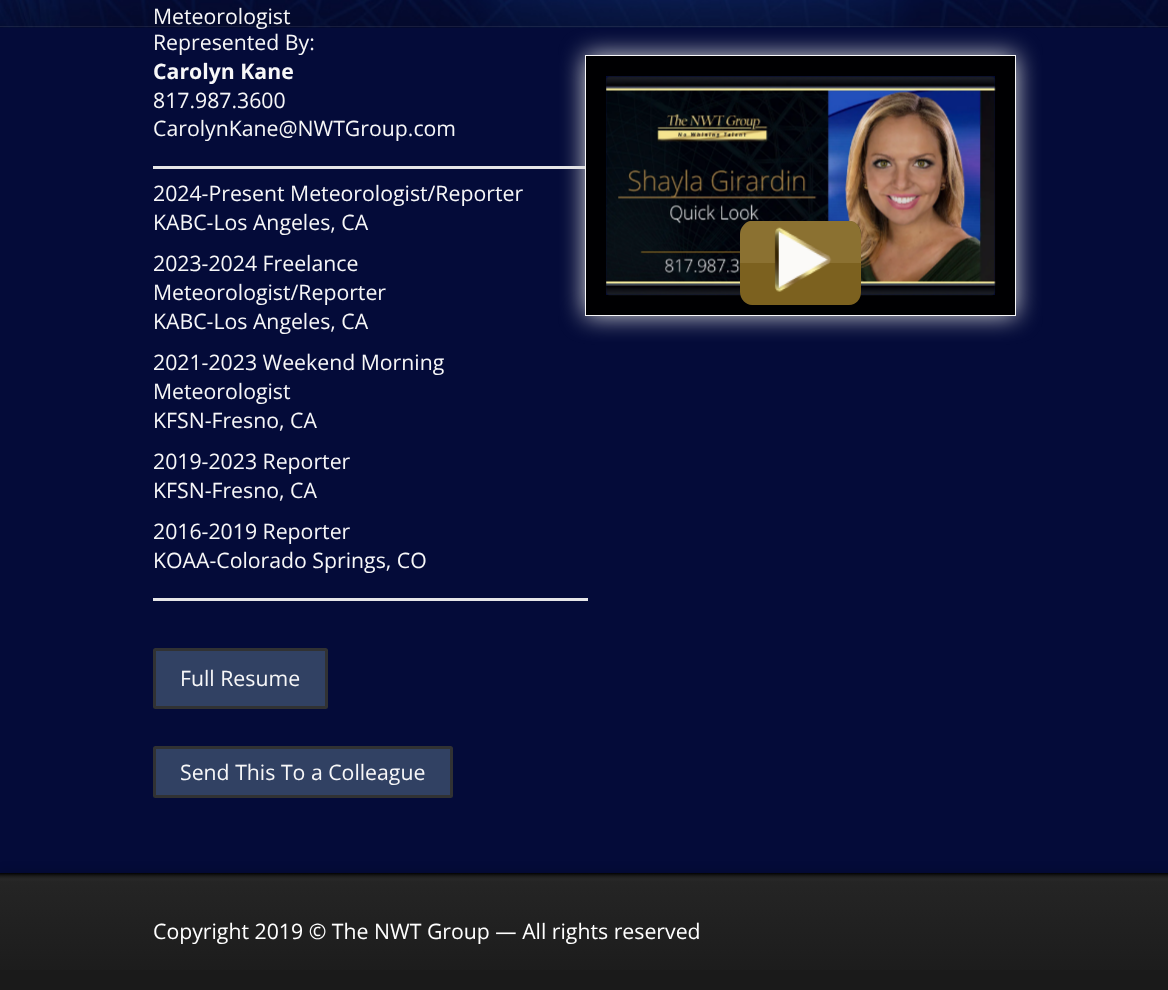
<!DOCTYPE html>
<meta charset="utf-8">
<style>body { margin: 0 } canvas { display: block }</style>
<canvas id="canvas" width="1168" height="990"></canvas>
<img id="img1" src="images/1.png" hidden>
<img id="img2" src="images/2.png" hidden>
<img id="img3" src="images/3.png" hidden>
<img id="img4" src="images/4.png" hidden>
<script>
window.onload = function () {
    const canvas = document.getElementById('canvas');
    const context = canvas.getContext('2d');
    context.miterLimit = 4;
    context.fontKerning = 'normal';
    let gradient;

    context.fillStyle = 'rgb(4, 11, 57)';
    context.fillRect(0, 0, 1168, 990);
    context.drawImage(document.getElementById('img1'), 0, 0, 1168, 28);
    context.fillStyle = 'rgba(204, 204, 204, 0.1)';
    context.fillRect(0, 26, 1168, 1);
    context.fillStyle = 'rgb(230, 230, 232)';
    context.fillRect(153, 166, 435, 3);
    context.fillRect(153, 598, 435, 3);
    context.fillStyle = 'rgb(49, 65, 99)';
    context.beginPath();
    context.roundRect(154.5, 649.5, 172, 58, 1);
    context.fill();
    context.strokeStyle = 'rgb(49, 50, 51)';
    context.lineWidth = 3;
    context.stroke();
    context.beginPath();
    context.roundRect(154.5, 747.5, 297, 49, 1);
    context.fill();
    context.stroke();
    context.save();
    context.beginPath();
    context.moveTo(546, 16);
    context.lineTo(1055, 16);
    context.lineTo(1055, 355);
    context.lineTo(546, 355);
    context.closePath();
    context.moveTo(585, 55);
    context.lineTo(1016, 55);
    context.lineTo(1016, 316);
    context.lineTo(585, 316);
    context.closePath();
    context.clip('evenodd');
    context.fillStyle = 'rgb(214, 214, 216)';
    context.filter = 'blur(12.5px)';
    context.beginPath();
    context.rect(585, 55, 431, 261);
    context.fill();
    context.filter = 'none';
    context.restore();
    context.drawImage(document.getElementById('img2'), 733, 171, 31, 31);
    context.strokeStyle = 'rgb(247, 247, 248)';
    context.lineWidth = 1;
    context.strokeRect(585.5, 55.5, 430, 260);
    context.strokeStyle = 'rgb(0, 0, 2)';
    context.lineWidth = 20;
    context.strokeRect(596, 66, 409, 239);
    context.drawImage(document.getElementById('img3'), 606, 76, 390, 220);
    context.fillStyle = 'rgb(18, 21, 29)';
    context.beginPath();
    context.roundRect(740, 221, 121, 84, 13);
    context.fill();
    context.fillStyle = 'rgb(139, 113, 49)';
    context.beginPath();
    context.moveTo(740, 234);
    context.lineTo(740, 263);
    context.lineTo(861, 263);
    context.lineTo(861, 234);
    context.bezierCurveTo(861, 228, 857, 222, 851, 221);
    context.lineTo(750, 221);
    context.bezierCurveTo(745, 222, 740, 228, 740, 234);
    context.closePath();
    context.fill();
    context.fillStyle = 'rgb(124, 97, 31)';
    context.beginPath();
    context.moveTo(740, 263);
    context.lineTo(740, 292);
    context.bezierCurveTo(740, 299, 746, 305, 752, 305);
    context.lineTo(849, 305);
    context.bezierCurveTo(856, 305, 861, 299, 861, 292);
    context.lineTo(861, 263);
    context.closePath();
    context.fill();
    context.drawImage(document.getElementById('img4'), 774, 227, 58, 65);
    context.fillStyle = 'rgba(0, 0, 0, 0.2)';
    context.filter = 'blur(6px)';
    context.beginPath();
    context.rect(0, 873, 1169, 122);
    context.fill();
    context.filter = 'none';
    context.fillStyle = 'rgb(26, 26, 26)';
    context.fillRect(0, 874, 1168, 116);
    context.fillStyle = 'rgb(49, 49, 49)';
    context.fillRect(0, 873, 1168, 1);
    gradient = context.createLinearGradient(584, 873, 584, 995);
    gradient.addColorStop(0, 'rgb(0, 0, 0)');
    gradient.addColorStop(0.07, 'rgba(76, 76, 76, 0.21)');
    gradient.addColorStop(1, 'rgba(76, 76, 76, 0)');
    context.fillStyle = gradient;
    context.fillRect(0, 873, 1168, 97);
    context.font = '21.25px Open Sans';
    context.fillStyle = 'rgb(247, 247, 248)';
    context.fillText('Meteorologist', 153, 24);
    context.fillText('Represented By:', 153, 50);
    context.font = 'bold 21.25px Open Sans';
    context.fillText('Carolyn Kane', 153, 79);
    context.font = '21.25px Open Sans';
    context.fillText('817.987.3600', 153, 108);
    context.fillText('CarolynKane@NWTGroup.com', 153, 136);
    context.fillText('2024-Present Meteorologist/Reporter', 153, 201);
    context.fillText('KABC-Los Angeles, CA', 153, 230);
    context.fillText('2023-2024 Freelance', 153, 271);
    context.fillText('Meteorologist/Reporter', 153, 300);
    context.fillText('KABC-Los Angeles, CA', 153, 329);
    context.fillText('2021-2023 Weekend Morning', 153, 370);
    context.fillText('Meteorologist', 153, 399);
    context.fillText('KFSN-Fresno, CA', 153, 428);
    context.fillText('2019-2023 Reporter', 153, 469);
    context.fillText('KFSN-Fresno, CA', 153, 498);
    context.fillText('2016-2019 Reporter', 153, 539);
    context.fillText('KOAA-Colorado Springs, CO', 153, 568);
    context.fillText('Full Resume', 180, 686);
    context.fillText('Send This To a Colleague', 180, 780);
    context.fillStyle = 'rgb(255, 255, 255)';
    context.fillText('Copyright 2019 © The NWT Group — All rights reserved', 153, 939);
};
</script>
